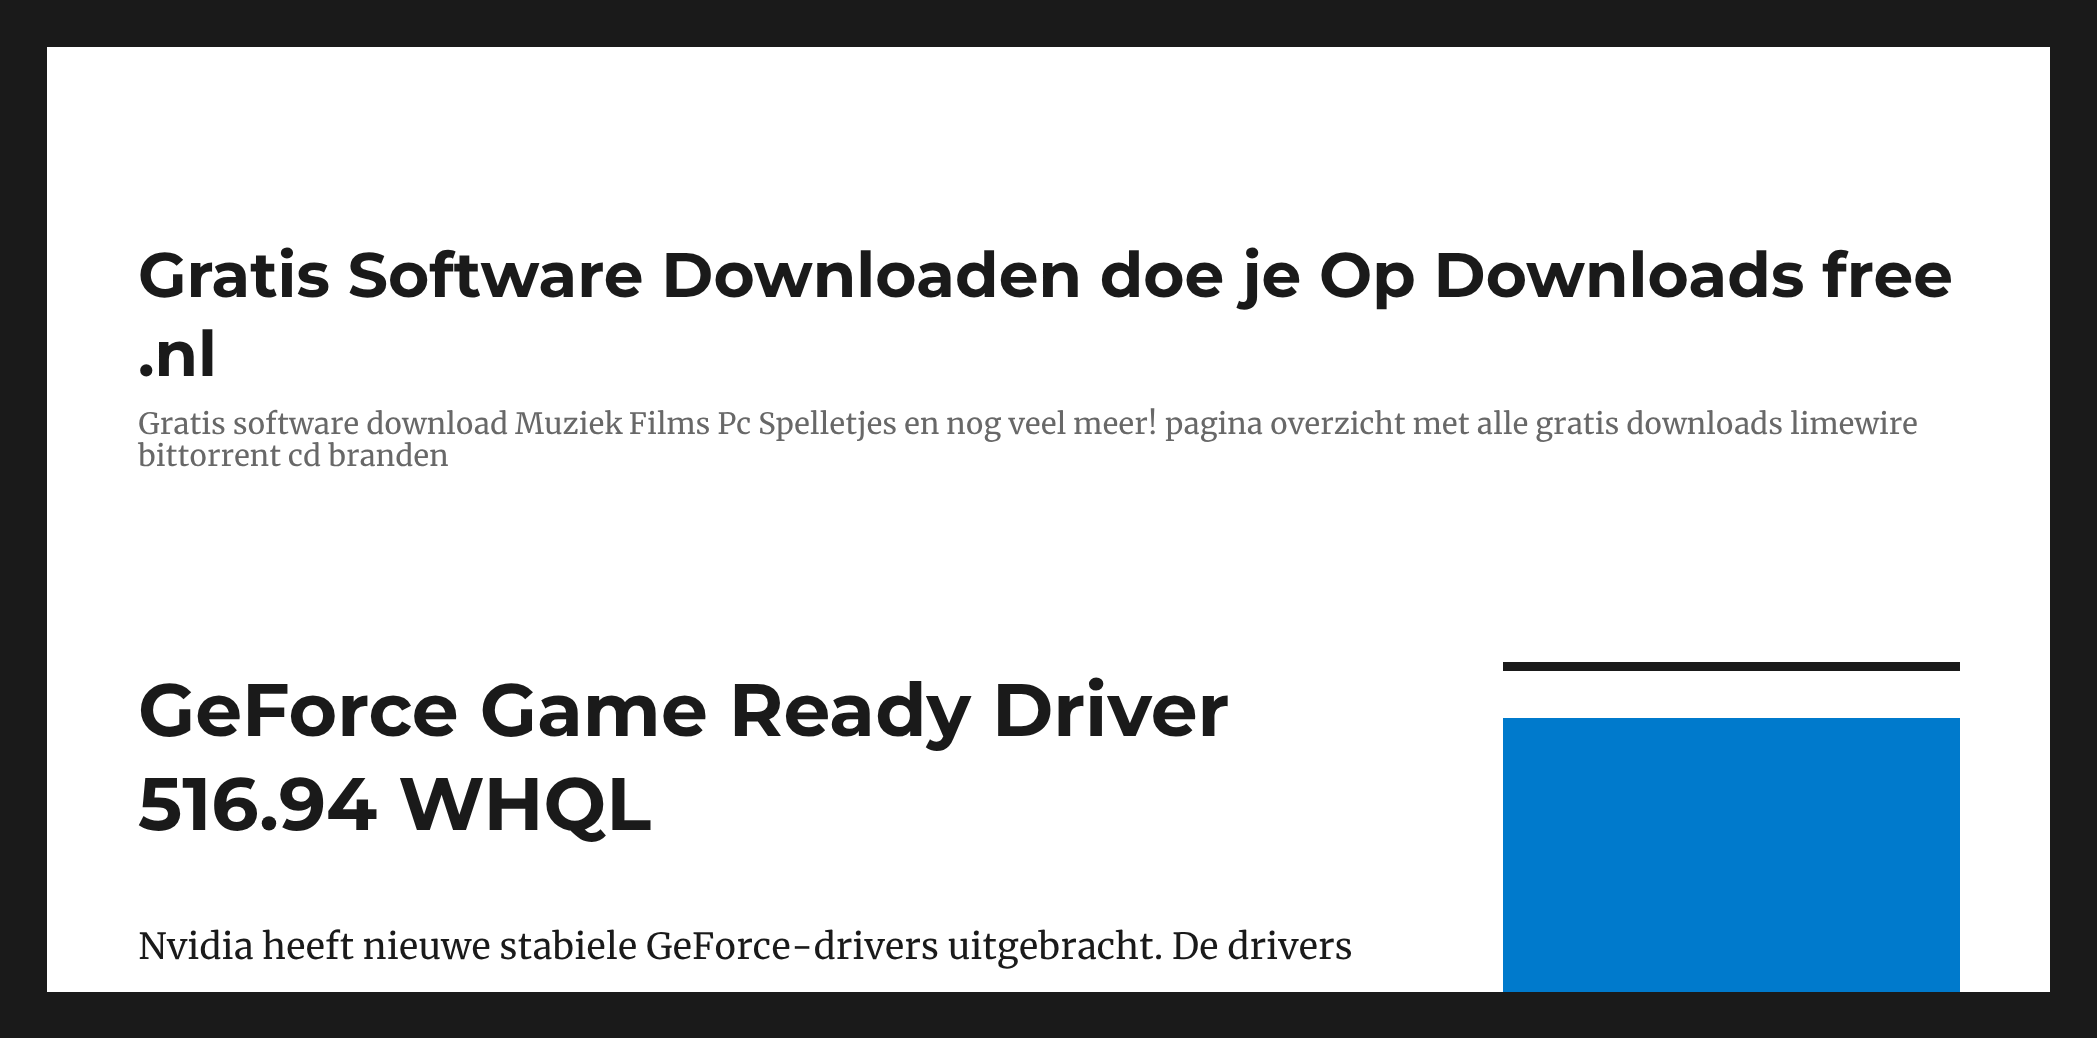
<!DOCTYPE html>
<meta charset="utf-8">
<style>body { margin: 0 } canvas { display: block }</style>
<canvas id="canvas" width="2097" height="1038"></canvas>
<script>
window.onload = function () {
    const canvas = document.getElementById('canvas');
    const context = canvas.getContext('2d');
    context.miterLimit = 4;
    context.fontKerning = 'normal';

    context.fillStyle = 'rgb(26, 26, 26)';
    context.fillRect(0, 0, 2097, 1038);
    context.fillStyle = 'rgb(255, 255, 255)';
    context.fillRect(47, 47, 2003, 945);
    context.fillStyle = 'rgb(26, 26, 26)';
    context.fillRect(1503, 662, 457, 9);
    context.fillStyle = 'rgb(0, 122, 204)';
    context.fillRect(1503, 718, 457, 274);
    context.font = '100 63px Montserrat';
    context.fillStyle = 'rgb(26, 26, 26)';
    context.fillText('Gratis Software Downloaden doe je Op Downloads free', 138, 297);
    context.fillText('.nl', 138, 376);
    context.font = '29.25px Merriweather';
    context.fillStyle = 'rgb(104, 104, 104)';
    context.fillText('Gratis software download Muziek Films Pc Spelletjes en nog veel meer! pagina overzicht met alle gratis downloads limewire', 138, 434);
    context.fillText('bittorrent cd branden', 138, 466);
    context.font = '100 74.25px Montserrat';
    context.fillStyle = 'rgb(26, 26, 26)';
    context.fillText('GeForce Game Ready Driver', 138, 736);
    context.fillText('516.94 WHQL', 138, 830);
    context.font = '36px Merriweather';
    context.fillText('Nvidia heeft nieuwe stabiele GeForce-drivers uitgebracht. De drivers', 138, 959);
};
</script>
